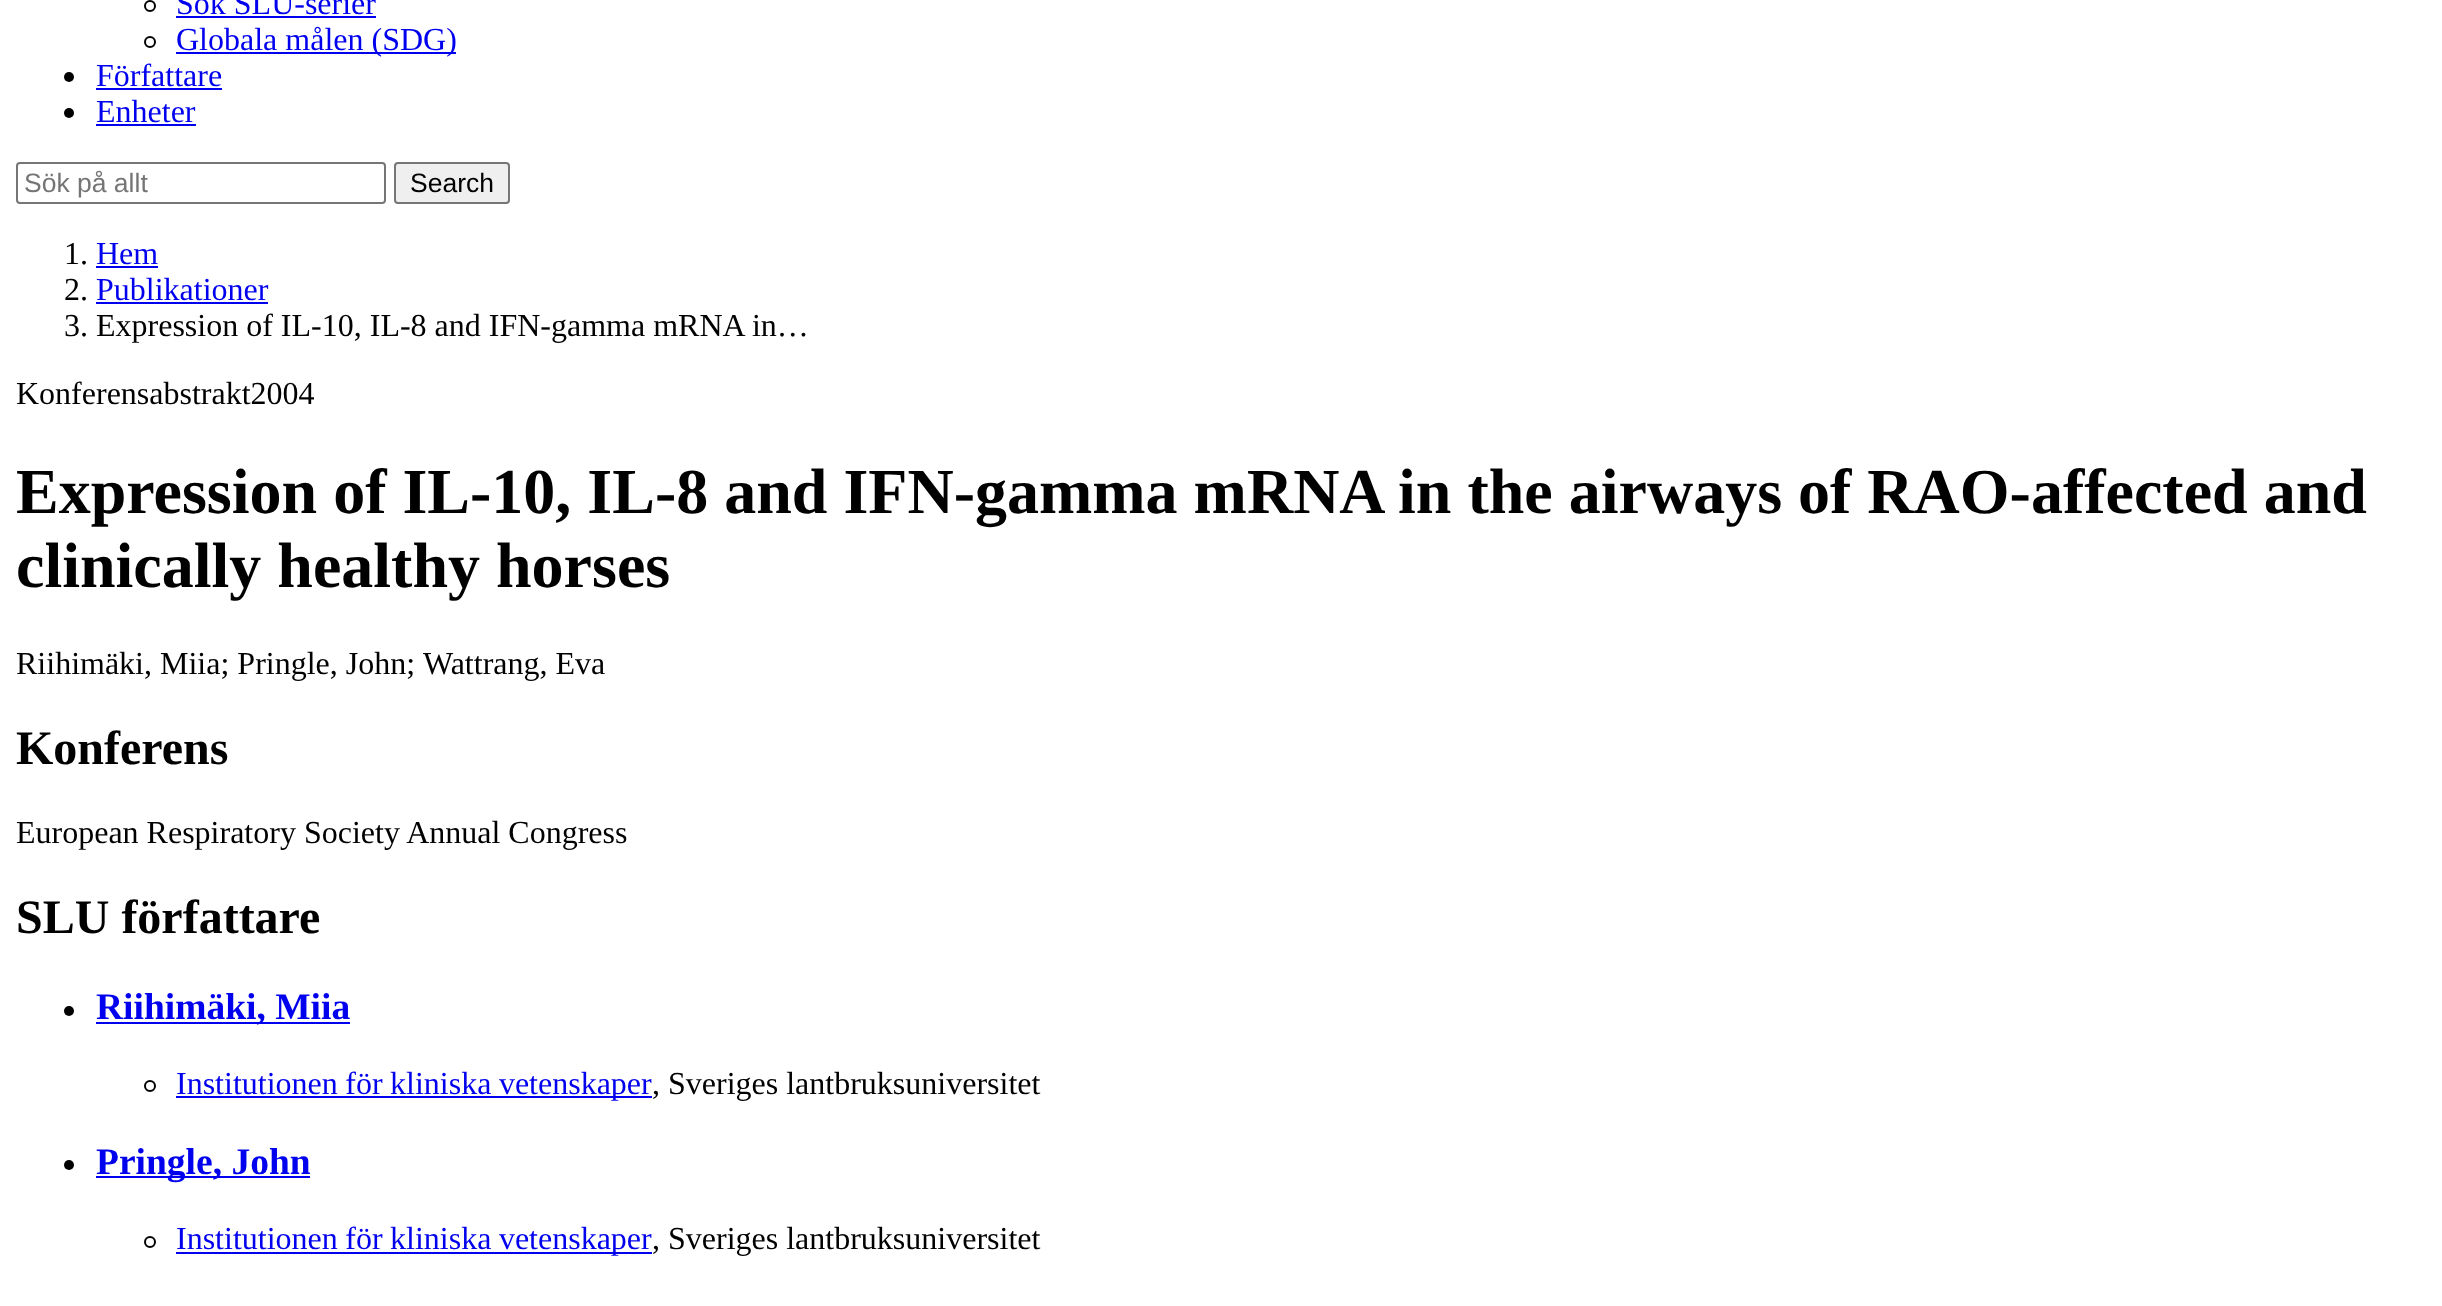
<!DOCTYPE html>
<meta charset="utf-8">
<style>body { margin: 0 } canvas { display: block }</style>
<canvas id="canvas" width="2442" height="1306"></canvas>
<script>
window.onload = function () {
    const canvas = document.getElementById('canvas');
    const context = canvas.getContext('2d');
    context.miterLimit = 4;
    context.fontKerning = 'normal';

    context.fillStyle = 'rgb(255, 255, 255)';
    context.fillRect(0, 0, 2442, 1306);
    context.beginPath();
    context.arc(150, 6, 5, 0, 2 * Math.PI);
    context.strokeStyle = 'rgb(0, 0, 0)';
    context.lineWidth = 2;
    context.stroke();
    context.fillStyle = 'rgb(0, 0, 238)';
    context.fillRect(176, 16, 200, 2);
    context.beginPath();
    context.arc(150, 42, 5, 0, 2 * Math.PI);
    context.stroke();
    context.fillRect(176, 52, 280, 2);
    context.fillStyle = 'rgb(0, 0, 0)';
    context.beginPath();
    context.arc(69, 77, 5, 0, 2 * Math.PI);
    context.fill();
    context.fillStyle = 'rgb(0, 0, 238)';
    context.fillRect(96, 88, 126, 2);
    context.fillStyle = 'rgb(0, 0, 0)';
    context.beginPath();
    context.arc(69, 113, 5, 0, 2 * Math.PI);
    context.fill();
    context.fillStyle = 'rgb(0, 0, 238)';
    context.fillRect(96, 124, 100, 2);
    context.beginPath();
    context.roundRect(17, 163, 368, 40, 3);
    context.strokeStyle = 'rgb(118, 118, 118)';
    context.stroke();
    context.fillStyle = 'rgb(239, 239, 239)';
    context.beginPath();
    context.roundRect(395, 163, 114, 40, 3);
    context.fill();
    context.stroke();
    context.fillStyle = 'rgb(0, 0, 238)';
    context.fillRect(96, 266, 62, 2);
    context.fillRect(96, 302, 172, 2);
    context.fillStyle = 'rgb(0, 0, 0)';
    context.beginPath();
    context.arc(69, 1011, 5, 0, 2 * Math.PI);
    context.fill();
    context.fillStyle = 'rgb(0, 0, 238)';
    context.fillRect(96, 1022, 254, 2);
    context.beginPath();
    context.arc(150, 1086, 5, 0, 2 * Math.PI);
    context.strokeStyle = 'rgb(0, 0, 0)';
    context.stroke();
    context.fillRect(176, 1096, 476, 2);
    context.fillStyle = 'rgb(0, 0, 0)';
    context.beginPath();
    context.arc(69, 1165, 5, 0, 2 * Math.PI);
    context.fill();
    context.fillStyle = 'rgb(0, 0, 238)';
    context.fillRect(96, 1176, 214, 2);
    context.beginPath();
    context.arc(150, 1242, 5, 0, 2 * Math.PI);
    context.stroke();
    context.fillRect(176, 1252, 476, 2);
    context.font = '32px Liberation Serif';
    context.fillText('Sök SLU-serier', 176, 14);
    context.fillText('Globala målen (SDG)', 176, 50);
    context.fillText('Författare', 96, 86);
    context.fillText('Enheter', 96, 122);
    context.font = '26.5px Liberation Sans';
    context.fillStyle = 'rgb(117, 117, 117)';
    context.fillText('Sök på allt', 24, 192);
    context.fillStyle = 'rgb(0, 0, 0)';
    context.fillText('Search', 410, 192);
    context.font = '32px Liberation Serif';
    context.fillText('1.', 64, 264);
    context.fillStyle = 'rgb(0, 0, 238)';
    context.fillText('Hem', 96, 264);
    context.fillStyle = 'rgb(0, 0, 0)';
    context.fillText('2.', 64, 300);
    context.fillStyle = 'rgb(0, 0, 238)';
    context.fillText('Publikationer', 96, 300);
    context.fillStyle = 'rgb(0, 0, 0)';
    context.fillText('3. Expression of IL-10, IL-8 and IFN-gamma mRNA in…', 64, 336);
    context.fillText('Konferensabstrakt2004', 16, 404);
    context.font = 'bold 64px Liberation Serif';
    context.fillText('Expression of IL-10, IL-8 and IFN-gamma mRNA in the airways of RAO-affected and', 16, 513);
    context.fillText('clinically healthy horses', 16, 587);
    context.font = '32px Liberation Serif';
    context.fillText('Riihimäki, Miia; Pringle, John;', 16, 674);
    context.fillText('Wattrang, Eva', 423, 674);
    context.font = 'bold 48px Liberation Serif';
    context.fillText('Konferens', 16, 764);
    context.font = '32px Liberation Serif';
    context.fillText('European Respiratory Society Annual Congress', 16, 843);
    context.font = 'bold 48px Liberation Serif';
    context.fillText('SLU författare', 16, 933);
    context.font = 'bold 37.5px Liberation Serif';
    context.fillStyle = 'rgb(0, 0, 238)';
    context.fillText('Riihimäki, Miia', 96, 1019);
    context.wordSpacing = '-0.5px';
    context.font = '32px Liberation Serif';
    context.fillText('Institutionen för kliniska vetenskaper', 176, 1094);
    context.wordSpacing = '0px';
    context.fillStyle = 'rgb(0, 0, 0)';
    context.fillText(', Sveriges lantbruksuniversitet', 652, 1094);
    context.font = 'bold 37.5px Liberation Serif';
    context.fillStyle = 'rgb(0, 0, 238)';
    context.fillText('Pringle, John', 96, 1174);
    context.wordSpacing = '-0.5px';
    context.font = '32px Liberation Serif';
    context.fillText('Institutionen för kliniska vetenskaper', 176, 1249);
    context.wordSpacing = '0px';
    context.fillStyle = 'rgb(0, 0, 0)';
    context.fillText(', Sveriges lantbruksuniversitet', 652, 1249);
};
</script>
